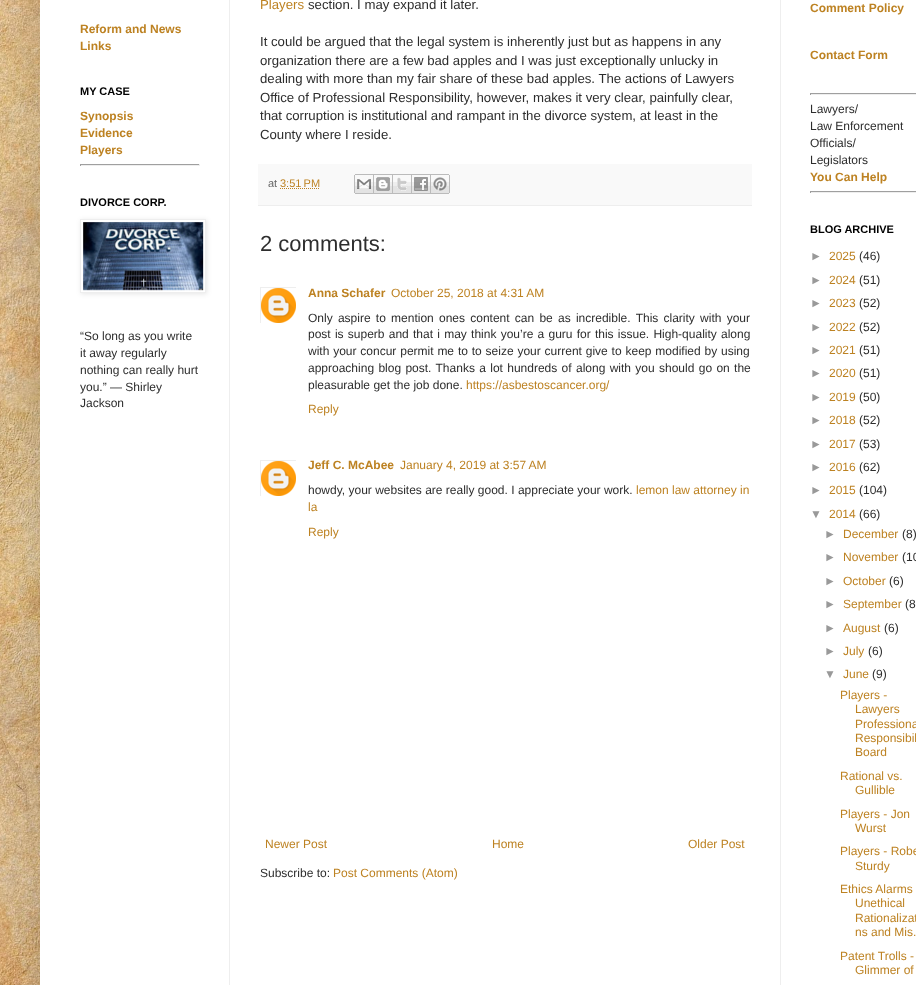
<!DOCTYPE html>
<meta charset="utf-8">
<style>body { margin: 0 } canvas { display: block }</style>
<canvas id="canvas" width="916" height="985"></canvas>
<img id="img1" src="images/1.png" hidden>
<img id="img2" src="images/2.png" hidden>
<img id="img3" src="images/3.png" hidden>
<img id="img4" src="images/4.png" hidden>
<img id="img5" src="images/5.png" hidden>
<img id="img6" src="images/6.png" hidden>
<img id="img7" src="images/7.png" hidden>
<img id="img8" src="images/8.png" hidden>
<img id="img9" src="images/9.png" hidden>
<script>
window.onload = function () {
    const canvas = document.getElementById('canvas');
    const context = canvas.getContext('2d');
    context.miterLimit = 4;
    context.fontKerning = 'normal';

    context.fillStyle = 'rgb(255, 255, 255)';
    context.fillRect(0, 0, 916, 985);
    context.drawImage(document.getElementById('img1'), 0, 55, 40, 930);
    context.drawImage(document.getElementById('img2'), 0, 0, 40, 55);
    context.fillStyle = 'rgba(0, 0, 0, 0.15)';
    context.filter = 'blur(20px)';
    context.beginPath();
    context.rect(40, -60, 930, 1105);
    context.fill();
    context.filter = 'none';
    context.fillStyle = 'rgb(255, 255, 255)';
    context.fillRect(40, 0, 876, 985);
    context.fillStyle = 'rgb(159, 159, 159)';
    context.fillRect(80, 164, 120, 1);
    context.fillStyle = 'rgb(238, 238, 238)';
    context.fillRect(199, 164, 1, 2);
    context.fillRect(80, 165, 120, 1);
    context.fillStyle = 'rgb(159, 159, 159)';
    context.fillRect(80, 164, 1, 2);
    context.save();
    context.beginPath();
    context.moveTo(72, 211);
    context.lineTo(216, 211);
    context.lineTo(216, 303);
    context.lineTo(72, 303);
    context.closePath();
    context.moveTo(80, 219);
    context.lineTo(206, 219);
    context.lineTo(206, 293);
    context.lineTo(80, 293);
    context.closePath();
    context.clip('evenodd');
    context.fillStyle = 'rgba(0, 0, 0, 0.1)';
    context.filter = 'blur(2.5px)';
    context.beginPath();
    context.rect(81, 220, 126, 74);
    context.fill();
    context.filter = 'none';
    context.restore();
    context.strokeStyle = 'rgb(238, 238, 238)';
    context.strokeRect(80.5, 219.5, 125, 73);
    context.drawImage(document.getElementById('img3'), 83, 222, 121, 69);
    context.fillStyle = 'rgb(249, 249, 249)';
    context.fillRect(258, 164, 494, 41);
    context.fillStyle = 'rgb(238, 238, 238)';
    context.fillRect(258, 205, 494, 1);
    context.beginPath();
    context.moveTo(280, 188.5);
    context.lineTo(319.5, 188.5);
    context.strokeStyle = 'rgb(189, 130, 34)';
    context.setLineDash([1, 1]);
    context.stroke();
    context.drawImage(document.getElementById('img4'), 354, 174, 20, 20);
    context.drawImage(document.getElementById('img5'), 374, 174, 19, 20);
    context.drawImage(document.getElementById('img6'), 393, 174, 19, 20);
    context.drawImage(document.getElementById('img7'), 412, 174, 19, 20);
    context.drawImage(document.getElementById('img8'), 431, 174, 19, 20);
    context.save();
    context.beginPath();
    context.rect(260, 287, 36, 36);
    context.clip();
    context.strokeStyle = 'rgb(238, 238, 238)';
    context.setLineDash([]);
    context.strokeRect(260.5, 287.5, 36, 36);
    context.restore();
    context.drawImage(document.getElementById('img9'), 261, 288, 35, 35);
    context.save();
    context.beginPath();
    context.rect(260, 460, 36, 36);
    context.clip();
    context.strokeStyle = 'rgb(238, 238, 238)';
    context.setLineDash([]);
    context.strokeRect(260.5, 460.5, 36, 36);
    context.restore();
    context.drawImage(document.getElementById('img9'), 261, 461, 35, 35);
    context.fillStyle = 'rgb(159, 159, 159)';
    context.fillRect(810, 93, 106, 1);
    context.fillStyle = 'rgb(238, 238, 238)';
    context.fillRect(810, 94, 106, 1);
    context.fillStyle = 'rgb(159, 159, 159)';
    context.fillRect(810, 93, 1, 2);
    context.fillRect(810, 191, 106, 1);
    context.fillStyle = 'rgb(238, 238, 238)';
    context.fillRect(810, 192, 106, 1);
    context.fillStyle = 'rgb(159, 159, 159)';
    context.fillRect(810, 191, 1, 2);
    context.fillStyle = 'rgb(238, 238, 238)';
    context.fillRect(229, 0, 1, 985);
    context.fillRect(780, 0, 1, 985);
    context.font = 'bold 12px Liberation Sans';
    context.fillStyle = 'rgb(189, 130, 34)';
    context.fillText('Reform and News', 80, 33);
    context.fillText('Links', 80, 50);
    context.font = 'bold 11px Liberation Sans';
    context.fillStyle = 'rgb(0, 0, 0)';
    context.fillText('MY CASE', 80, 95);
    context.font = 'bold 12px Liberation Sans';
    context.fillStyle = 'rgb(189, 130, 34)';
    context.fillText('Synopsis', 80, 120);
    context.fillText('Evidence', 80, 137);
    context.fillText('Players', 80, 154);
    context.font = 'bold 11px Liberation Sans';
    context.fillStyle = 'rgb(0, 0, 0)';
    context.fillText('DIVORCE CORP.', 80, 206);
    context.font = '12px Liberation Sans';
    context.fillStyle = 'rgb(45, 45, 45)';
    context.fillText('“So long as you write', 80, 340);
    context.fillText('it away regularly', 80, 357);
    context.fillText('nothing can really hurt', 80, 374);
    context.fillText('you.” ― Shirley', 80, 391);
    context.fillText('Jackson', 80, 407);
    context.font = '13.2px Liberation Sans';
    context.fillStyle = 'rgb(189, 130, 34)';
    context.fillText('Players', 260, 9);
    context.fillStyle = 'rgb(45, 45, 45)';
    context.fillText('section. I may expand it later.', 308, 9);
    context.fillText('It could be argued that the legal system is inherently just but as happens in any', 260, 46);
    context.fillText('organization there are a few bad apples and I was just exceptionally unlucky in', 260, 65);
    context.fillText('dealing with more than my fair share of these bad apples. The actions of Lawyers', 260, 83);
    context.fillText('Office of Professional Responsibility, however, makes it very clear, painfully clear,', 260, 102);
    context.fillText('that corruption is institutional and rampant in the divorce system, at least in the', 260, 120);
    context.fillText('County where I reside.', 260, 139);
    context.font = '11px Liberation Sans';
    context.fillStyle = 'rgb(103, 103, 103)';
    context.fillText('at', 268, 187);
    context.fillStyle = 'rgb(189, 130, 34)';
    context.fillText('3:51 PM', 280, 187);
    context.font = '22px Liberation Sans';
    context.fillStyle = 'rgb(45, 45, 45)';
    context.fillText('2 comments:', 260, 251);
    context.font = 'bold 12px Liberation Sans';
    context.fillStyle = 'rgb(189, 130, 34)';
    context.fillText('Anna Schafer', 308, 297);
    context.font = '12px Liberation Sans';
    context.fillText('October 25, 2018 at 4:31 AM', 391, 297);
    context.wordSpacing = '1.9px';
    context.fillStyle = 'rgb(45, 45, 45)';
    context.fillText('Only aspire to mention ones content can be as incredible. This clarity with your', 308, 322);
    context.wordSpacing = '0.9px';
    context.fillText('post is superb and that i may think you’re a guru for this issue. High-quality along', 308, 338);
    context.wordSpacing = '0.5px';
    context.fillText('with your concur permit me to to seize your current give to keep modified by using', 308, 355);
    context.wordSpacing = '1px';
    context.fillText('approaching blog post. Thanks a lot hundreds of along with you should go on the', 308, 372);
    context.wordSpacing = '0px';
    context.fillText('pleasurable get the job done.', 308, 389);
    context.fillStyle = 'rgb(189, 130, 34)';
    context.fillText('https://asbestoscancer.org/', 466, 389);
    context.fillText('Reply', 308, 413);
    context.font = 'bold 12px Liberation Sans';
    context.fillText('Jeff C. McAbee', 308, 469);
    context.font = '12px Liberation Sans';
    context.fillText('January 4, 2019 at 3:57 AM', 400, 469);
    context.fillStyle = 'rgb(45, 45, 45)';
    context.fillText('howdy, your websites are really good. I appreciate your work.', 308, 494);
    context.fillStyle = 'rgb(189, 130, 34)';
    context.fillText('lemon law attorney in', 636, 494);
    context.fillText('la', 308, 511);
    context.fillText('Reply', 308, 536);
    context.fillText('Newer Post', 265, 848);
    context.fillText('Home', 492, 848);
    context.fillText('Older Post', 688, 848);
    context.fillStyle = 'rgb(45, 45, 45)';
    context.fillText('Subscribe to:', 260, 877);
    context.fillStyle = 'rgb(189, 130, 34)';
    context.fillText('Post Comments (Atom)', 333, 877);
    context.font = 'bold 12px Liberation Sans';
    context.fillText('Comment Policy', 810, 12);
    context.fillText('Contact Form', 810, 59);
    context.font = '12px Liberation Sans';
    context.fillStyle = 'rgb(45, 45, 45)';
    context.fillText('Lawyers/', 810, 113);
    context.fillText('Law Enforcement', 810, 130);
    context.fillText('Officials/', 810, 147);
    context.fillText('Legislators', 810, 164);
    context.font = 'bold 12px Liberation Sans';
    context.fillStyle = 'rgb(189, 130, 34)';
    context.fillText('You Can Help', 810, 181);
    context.font = 'bold 11px Liberation Sans';
    context.fillStyle = 'rgb(0, 0, 0)';
    context.fillText('BLOG ARCHIVE', 810, 233);
    context.font = '12px Liberation Sans';
    context.fillStyle = 'rgb(153, 153, 153)';
    context.fillText('►', 810, 260);
    context.fillStyle = 'rgb(189, 130, 34)';
    context.fillText('2025', 829, 260);
    context.fillStyle = 'rgb(45, 45, 45)';
    context.fillText('(46)', 859, 260);
    context.fillStyle = 'rgb(153, 153, 153)';
    context.fillText('►', 810, 284);
    context.fillStyle = 'rgb(189, 130, 34)';
    context.fillText('2024', 829, 284);
    context.fillStyle = 'rgb(45, 45, 45)';
    context.fillText('(51)', 859, 284);
    context.fillStyle = 'rgb(153, 153, 153)';
    context.fillText('►', 810, 307);
    context.fillStyle = 'rgb(189, 130, 34)';
    context.fillText('2023', 829, 307);
    context.fillStyle = 'rgb(45, 45, 45)';
    context.fillText('(52)', 859, 307);
    context.fillStyle = 'rgb(153, 153, 153)';
    context.fillText('►', 810, 331);
    context.fillStyle = 'rgb(189, 130, 34)';
    context.fillText('2022', 829, 331);
    context.fillStyle = 'rgb(45, 45, 45)';
    context.fillText('(52)', 859, 331);
    context.fillStyle = 'rgb(153, 153, 153)';
    context.fillText('►', 810, 354);
    context.fillStyle = 'rgb(189, 130, 34)';
    context.fillText('2021', 829, 354);
    context.fillStyle = 'rgb(45, 45, 45)';
    context.fillText('(51)', 859, 354);
    context.fillStyle = 'rgb(153, 153, 153)';
    context.fillText('►', 810, 377);
    context.fillStyle = 'rgb(189, 130, 34)';
    context.fillText('2020', 829, 377);
    context.fillStyle = 'rgb(45, 45, 45)';
    context.fillText('(51)', 859, 377);
    context.fillStyle = 'rgb(153, 153, 153)';
    context.fillText('►', 810, 401);
    context.fillStyle = 'rgb(189, 130, 34)';
    context.fillText('2019', 829, 401);
    context.fillStyle = 'rgb(45, 45, 45)';
    context.fillText('(50)', 859, 401);
    context.fillStyle = 'rgb(153, 153, 153)';
    context.fillText('►', 810, 424);
    context.fillStyle = 'rgb(189, 130, 34)';
    context.fillText('2018', 829, 424);
    context.fillStyle = 'rgb(45, 45, 45)';
    context.fillText('(52)', 859, 424);
    context.fillStyle = 'rgb(153, 153, 153)';
    context.fillText('►', 810, 448);
    context.fillStyle = 'rgb(189, 130, 34)';
    context.fillText('2017', 829, 448);
    context.fillStyle = 'rgb(45, 45, 45)';
    context.fillText('(53)', 859, 448);
    context.fillStyle = 'rgb(153, 153, 153)';
    context.fillText('►', 810, 471);
    context.fillStyle = 'rgb(189, 130, 34)';
    context.fillText('2016', 829, 471);
    context.fillStyle = 'rgb(45, 45, 45)';
    context.fillText('(62)', 859, 471);
    context.fillStyle = 'rgb(153, 153, 153)';
    context.fillText('►', 810, 494);
    context.fillStyle = 'rgb(189, 130, 34)';
    context.fillText('2015', 829, 494);
    context.fillStyle = 'rgb(45, 45, 45)';
    context.fillText('(104)', 859, 494);
    context.fillStyle = 'rgb(153, 153, 153)';
    context.fillText('▼', 810, 518);
    context.fillStyle = 'rgb(189, 130, 34)';
    context.fillText('2014', 829, 518);
    context.fillStyle = 'rgb(45, 45, 45)';
    context.fillText('(66)', 859, 518);
    context.fillStyle = 'rgb(153, 153, 153)';
    context.fillText('►', 824, 538);
    context.fillStyle = 'rgb(189, 130, 34)';
    context.fillText('December', 843, 538);
    context.fillStyle = 'rgb(45, 45, 45)';
    context.fillText('(8)', 902, 538);
    context.fillStyle = 'rgb(153, 153, 153)';
    context.fillText('►', 824, 561);
    context.fillStyle = 'rgb(189, 130, 34)';
    context.fillText('November', 843, 561);
    context.fillStyle = 'rgb(45, 45, 45)';
    context.fillText('(10', 902, 561);
    context.fillStyle = 'rgb(153, 153, 153)';
    context.fillText('►', 824, 585);
    context.fillStyle = 'rgb(189, 130, 34)';
    context.fillText('October', 843, 585);
    context.fillStyle = 'rgb(45, 45, 45)';
    context.fillText('(6)', 889, 585);
    context.fillStyle = 'rgb(153, 153, 153)';
    context.fillText('►', 824, 608);
    context.fillStyle = 'rgb(189, 130, 34)';
    context.fillText('September', 843, 608);
    context.fillStyle = 'rgb(45, 45, 45)';
    context.fillText('(8', 905, 608);
    context.fillStyle = 'rgb(153, 153, 153)';
    context.fillText('►', 824, 632);
    context.fillStyle = 'rgb(189, 130, 34)';
    context.fillText('August', 843, 632);
    context.fillStyle = 'rgb(45, 45, 45)';
    context.fillText('(6)', 884, 632);
    context.fillStyle = 'rgb(153, 153, 153)';
    context.fillText('►', 824, 655);
    context.fillStyle = 'rgb(189, 130, 34)';
    context.fillText('July', 843, 655);
    context.fillStyle = 'rgb(45, 45, 45)';
    context.fillText('(6)', 868, 655);
    context.fillStyle = 'rgb(153, 153, 153)';
    context.fillText('▼', 824, 678);
    context.fillStyle = 'rgb(189, 130, 34)';
    context.fillText('June', 843, 678);
    context.fillStyle = 'rgb(45, 45, 45)';
    context.fillText('(9)', 872, 678);
    context.fillStyle = 'rgb(189, 130, 34)';
    context.fillText('Players -', 840, 699);
    context.fillText('Lawyers', 855, 713);
    context.fillText('Professiona', 855, 728);
    context.fillText('Responsibil', 855, 742);
    context.fillText('Board', 855, 756);
    context.fillText('Rational vs.', 840, 780);
    context.fillText('Gullible', 855, 794);
    context.fillText('Players - Jon', 840, 818);
    context.fillText('Wurst', 855, 832);
    context.fillText('Players - Robe', 840, 855);
    context.fillText('Sturdy', 855, 870);
    context.fillText('Ethics Alarms', 840, 893);
    context.fillText('Unethical', 855, 907);
    context.fillText('Rationalizat', 855, 922);
    context.fillText('ns and Mis.', 855, 936);
    context.fillText('Patent Trolls -', 840, 960);
    context.fillText('Glimmer of', 855, 974);
};
</script>
